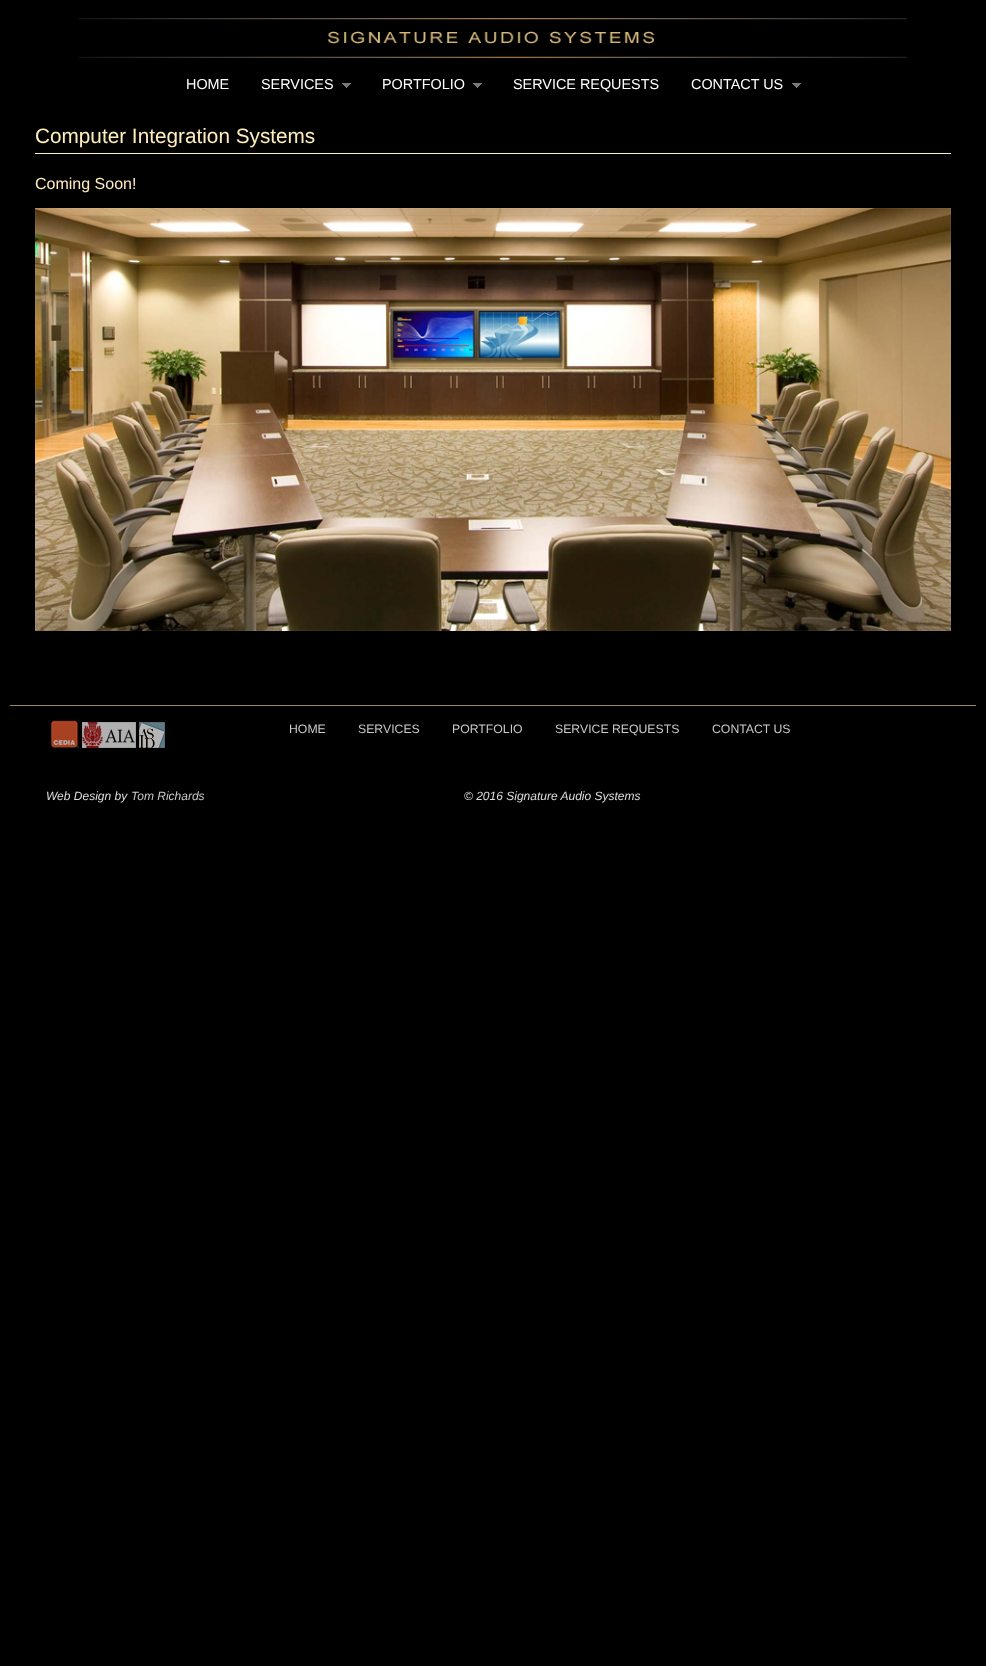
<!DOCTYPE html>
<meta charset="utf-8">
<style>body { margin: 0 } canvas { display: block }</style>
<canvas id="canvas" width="986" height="1666"></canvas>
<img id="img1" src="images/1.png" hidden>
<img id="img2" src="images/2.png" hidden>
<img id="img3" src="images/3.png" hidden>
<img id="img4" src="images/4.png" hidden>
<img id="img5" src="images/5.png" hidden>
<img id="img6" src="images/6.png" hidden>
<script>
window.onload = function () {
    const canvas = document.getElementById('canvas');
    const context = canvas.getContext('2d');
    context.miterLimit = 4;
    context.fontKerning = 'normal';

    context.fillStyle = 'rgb(0, 0, 0)';
    context.fillRect(0, 0, 986, 1666);
    context.drawImage(document.getElementById('img1'), 79, 18, 828, 40);
    context.drawImage(document.getElementById('img2'), 342, 83, 9, 5);
    context.drawImage(document.getElementById('img2'), 473, 83, 9, 5);
    context.drawImage(document.getElementById('img2'), 792, 83, 9, 5);
    context.fillStyle = 'rgb(255, 238, 187)';
    context.fillRect(35, 153, 916, 1);
    context.drawImage(document.getElementById('img3'), 35, 208, 916, 423);
    context.fillStyle = 'rgb(155, 137, 99)';
    context.fillRect(10, 705, 966, 1);
    context.drawImage(document.getElementById('img4'), 50, 720, 29, 28);
    context.drawImage(document.getElementById('img5'), 82, 722, 54, 26);
    context.drawImage(document.getElementById('img6'), 139, 722, 26, 26);
    context.font = '14.4px Liberation Sans';
    context.fillStyle = 'rgb(255, 255, 255)';
    context.fillText('HOME', 186, 89);
    context.fillText('SERVICES', 261, 89);
    context.fillText('PORTFOLIO', 382, 89);
    context.fillText('SERVICE REQUESTS', 513, 89);
    context.fillText('CONTACT US', 691, 89);
    context.font = '20.75px Liberation Sans';
    context.fillStyle = 'rgb(255, 238, 187)';
    context.fillText('Computer Integration Systems', 35, 143);
    context.font = '16px Liberation Sans';
    context.fillText('Coming Soon!', 35, 189);
    context.font = '12.25px Liberation Sans';
    context.fillStyle = 'rgb(201, 201, 201)';
    context.fillText('HOME', 289, 733);
    context.fillText('SERVICES', 358, 733);
    context.fillText('PORTFOLIO', 452, 733);
    context.fillText('SERVICE REQUESTS', 555, 733);
    context.fillText('CONTACT US', 712, 733);
    context.font = 'italic 12px Liberation Sans';
    context.fillStyle = 'rgb(222, 222, 222)';
    context.fillText('Web Design by', 46, 800);
    context.fillStyle = 'rgb(201, 201, 201)';
    context.fillText('Tom Richards', 131, 800);
    context.fillStyle = 'rgb(222, 222, 222)';
    context.fillText('© 2016 Signature Audio Systems', 464, 800);
};
</script>
